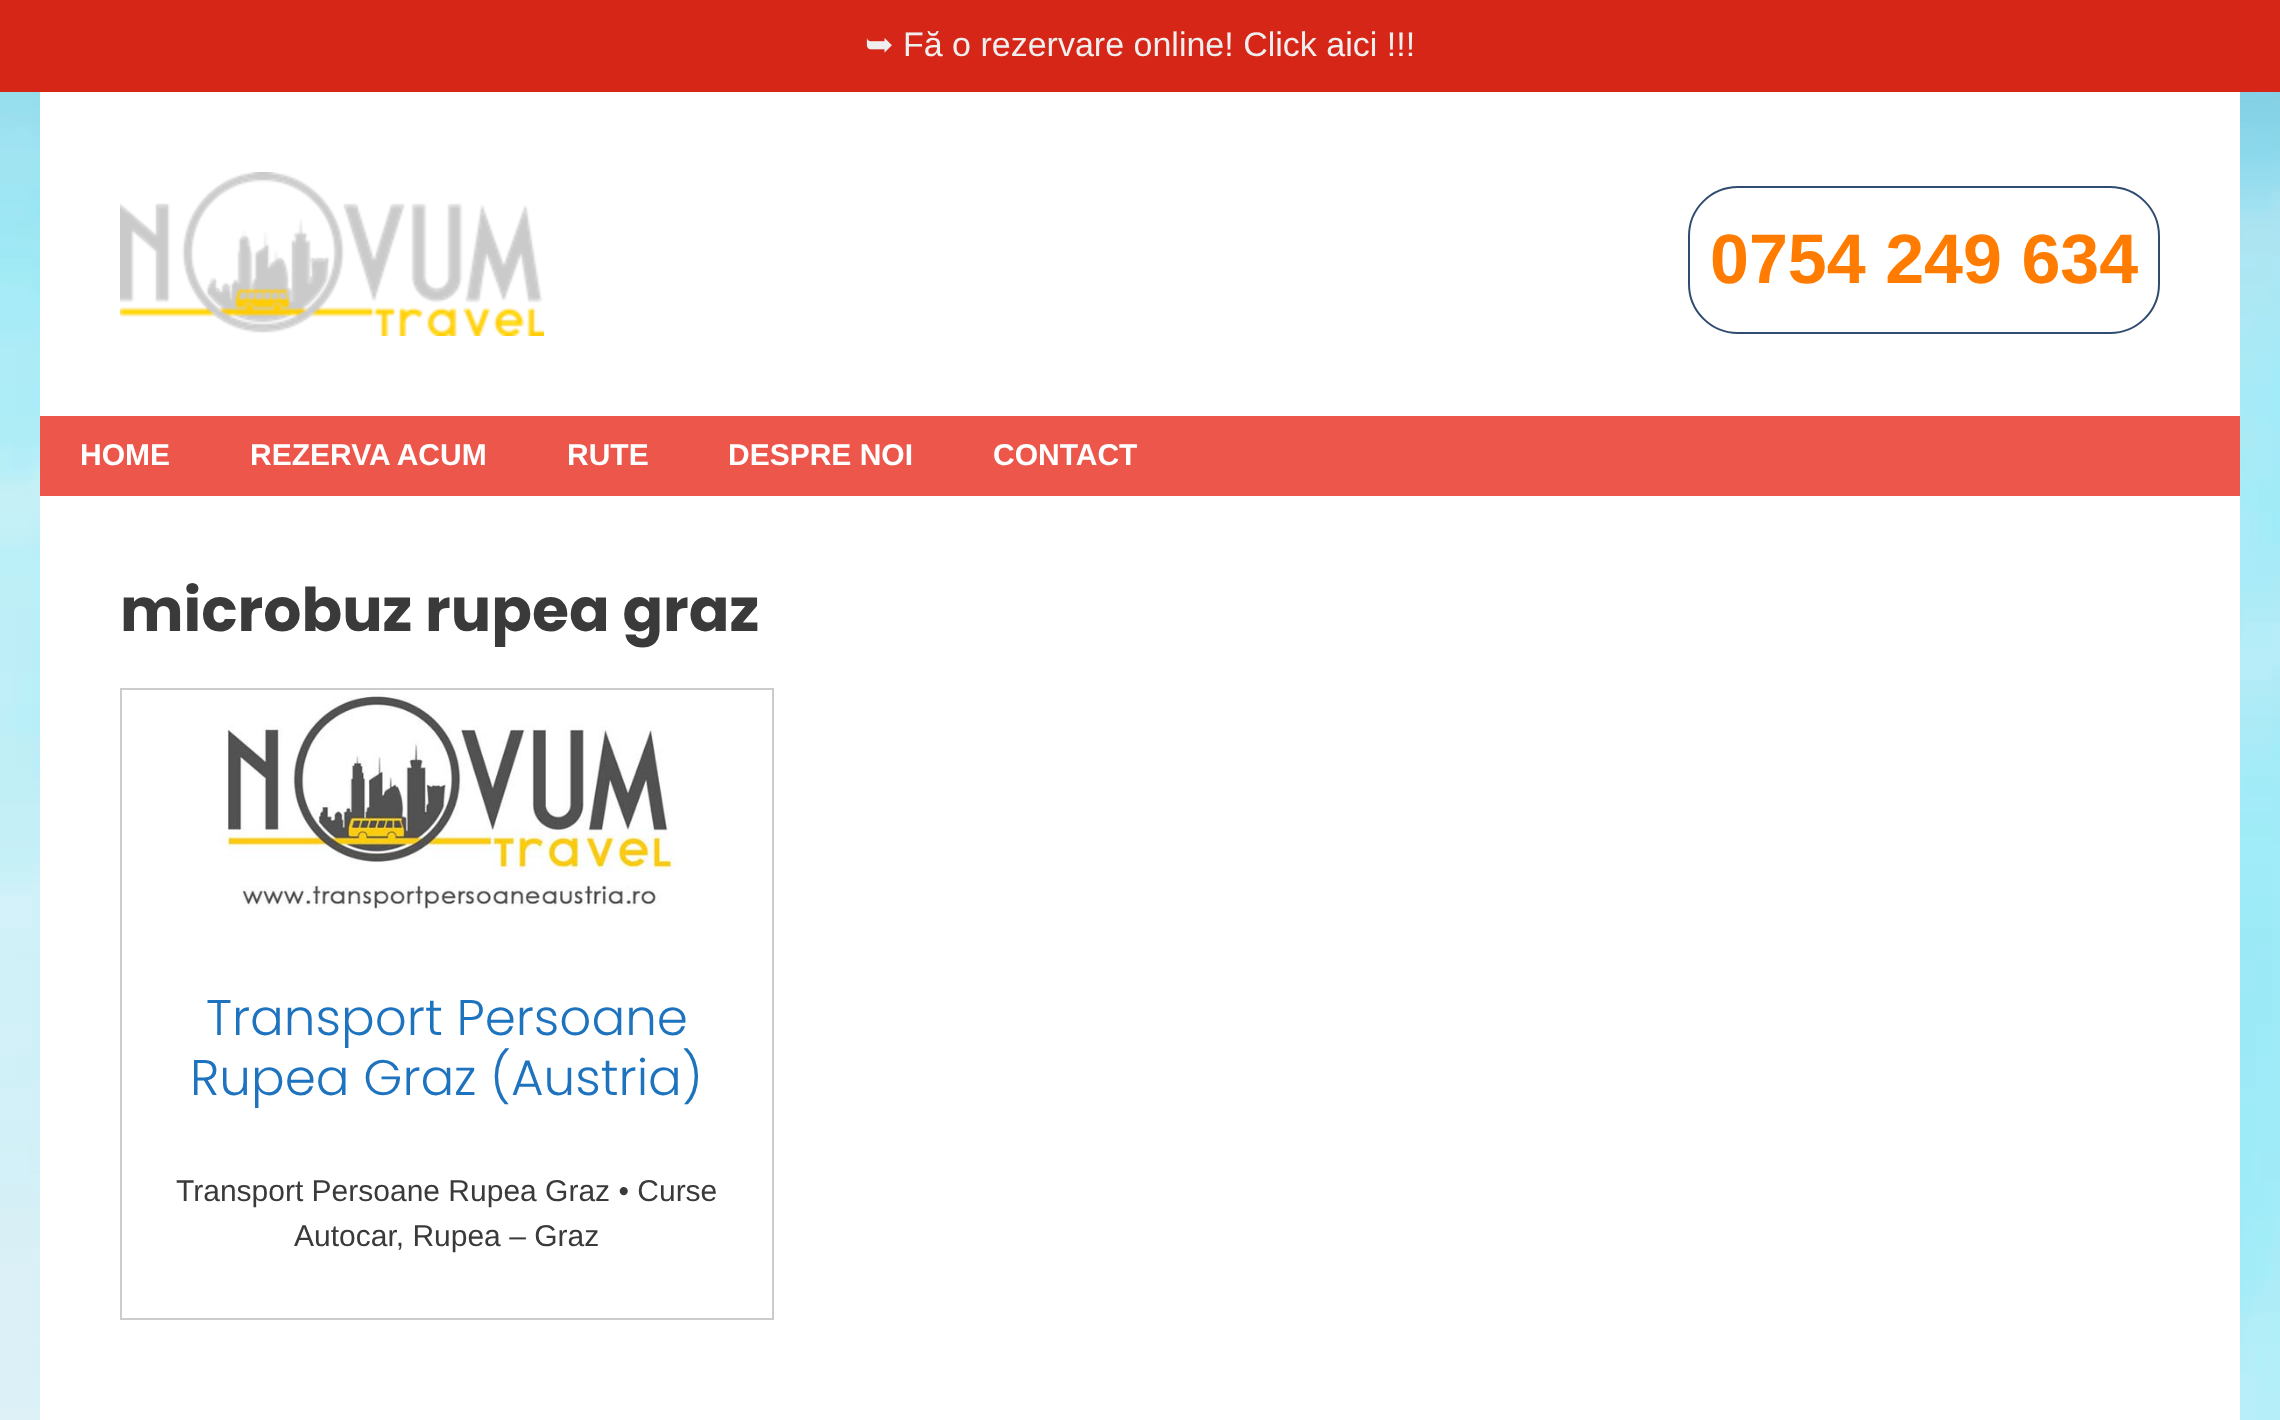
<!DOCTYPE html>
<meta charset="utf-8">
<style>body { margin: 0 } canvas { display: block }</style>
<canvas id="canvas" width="2280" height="1420"></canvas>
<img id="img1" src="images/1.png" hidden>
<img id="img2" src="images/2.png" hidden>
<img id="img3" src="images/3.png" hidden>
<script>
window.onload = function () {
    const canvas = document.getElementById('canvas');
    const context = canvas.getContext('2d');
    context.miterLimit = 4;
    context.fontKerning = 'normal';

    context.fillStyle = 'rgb(255, 255, 255)';
    context.fillRect(0, 0, 2280, 1420);
    context.drawImage(document.getElementById('img1'), 0, 92, 2280, 1328);
    context.fillStyle = 'rgb(214, 38, 24)';
    context.fillRect(0, 0, 2280, 92);
    context.fillStyle = 'rgb(255, 255, 255)';
    context.fillRect(40, 92, 2200, 324);
    context.drawImage(document.getElementById('img2'), 120, 172, 424, 164);
    context.beginPath();
    context.roundRect(1689, 187, 470, 146, 49);
    context.strokeStyle = 'rgb(48, 76, 111)';
    context.lineWidth = 2;
    context.stroke();
    context.fillStyle = 'rgb(237, 86, 75)';
    context.fillRect(40, 416, 2200, 80);
    context.fillStyle = 'rgb(255, 255, 255)';
    context.fillRect(40, 496, 2200, 924);
    context.strokeStyle = 'rgb(204, 204, 204)';
    context.strokeRect(121, 689, 652, 630);
    context.drawImage(document.getElementById('img3'), 220, 691, 462, 222);
    context.font = '34px DejaVu Sans';
    context.fillStyle = 'rgb(239, 239, 239)';
    context.fillText('➥', 865, 56);
    context.font = '34px Liberation Sans';
    context.fillText('Fă o rezervare online! Click aici !!!', 903, 56);
    context.font = 'bold 70px Liberation Sans';
    context.fillStyle = 'rgb(255, 124, 0)';
    context.fillText('0754 249 634', 1710, 283);
    context.font = 'bold 30px Liberation Sans';
    context.fillStyle = 'rgb(255, 255, 255)';
    context.fillText('HOME', 80, 465);
    context.fillText('REZERVA ACUM', 250, 465);
    context.fillText('RUTE', 567, 465);
    context.fillText('DESPRE NOI', 728, 465);
    context.fillText('CONTACT', 993, 465);
    context.font = 'bold 60px Poppins';
    context.fillStyle = 'rgb(58, 58, 58)';
    context.fillText('microbuz rupea graz', 120, 631);
    context.font = '300 50px Poppins';
    context.fillStyle = 'rgb(30, 115, 190)';
    context.fillText('Transport Persoane', 206, 1035);
    context.fillText('Rupea Graz (Austria)', 190, 1095);
    context.font = '30px Liberation Sans';
    context.fillStyle = 'rgb(58, 58, 58)';
    context.fillText('Transport Persoane Rupea Graz • Curse', 176, 1201);
    context.fillText('Autocar, Rupea – Graz', 294, 1246);
};
</script>
